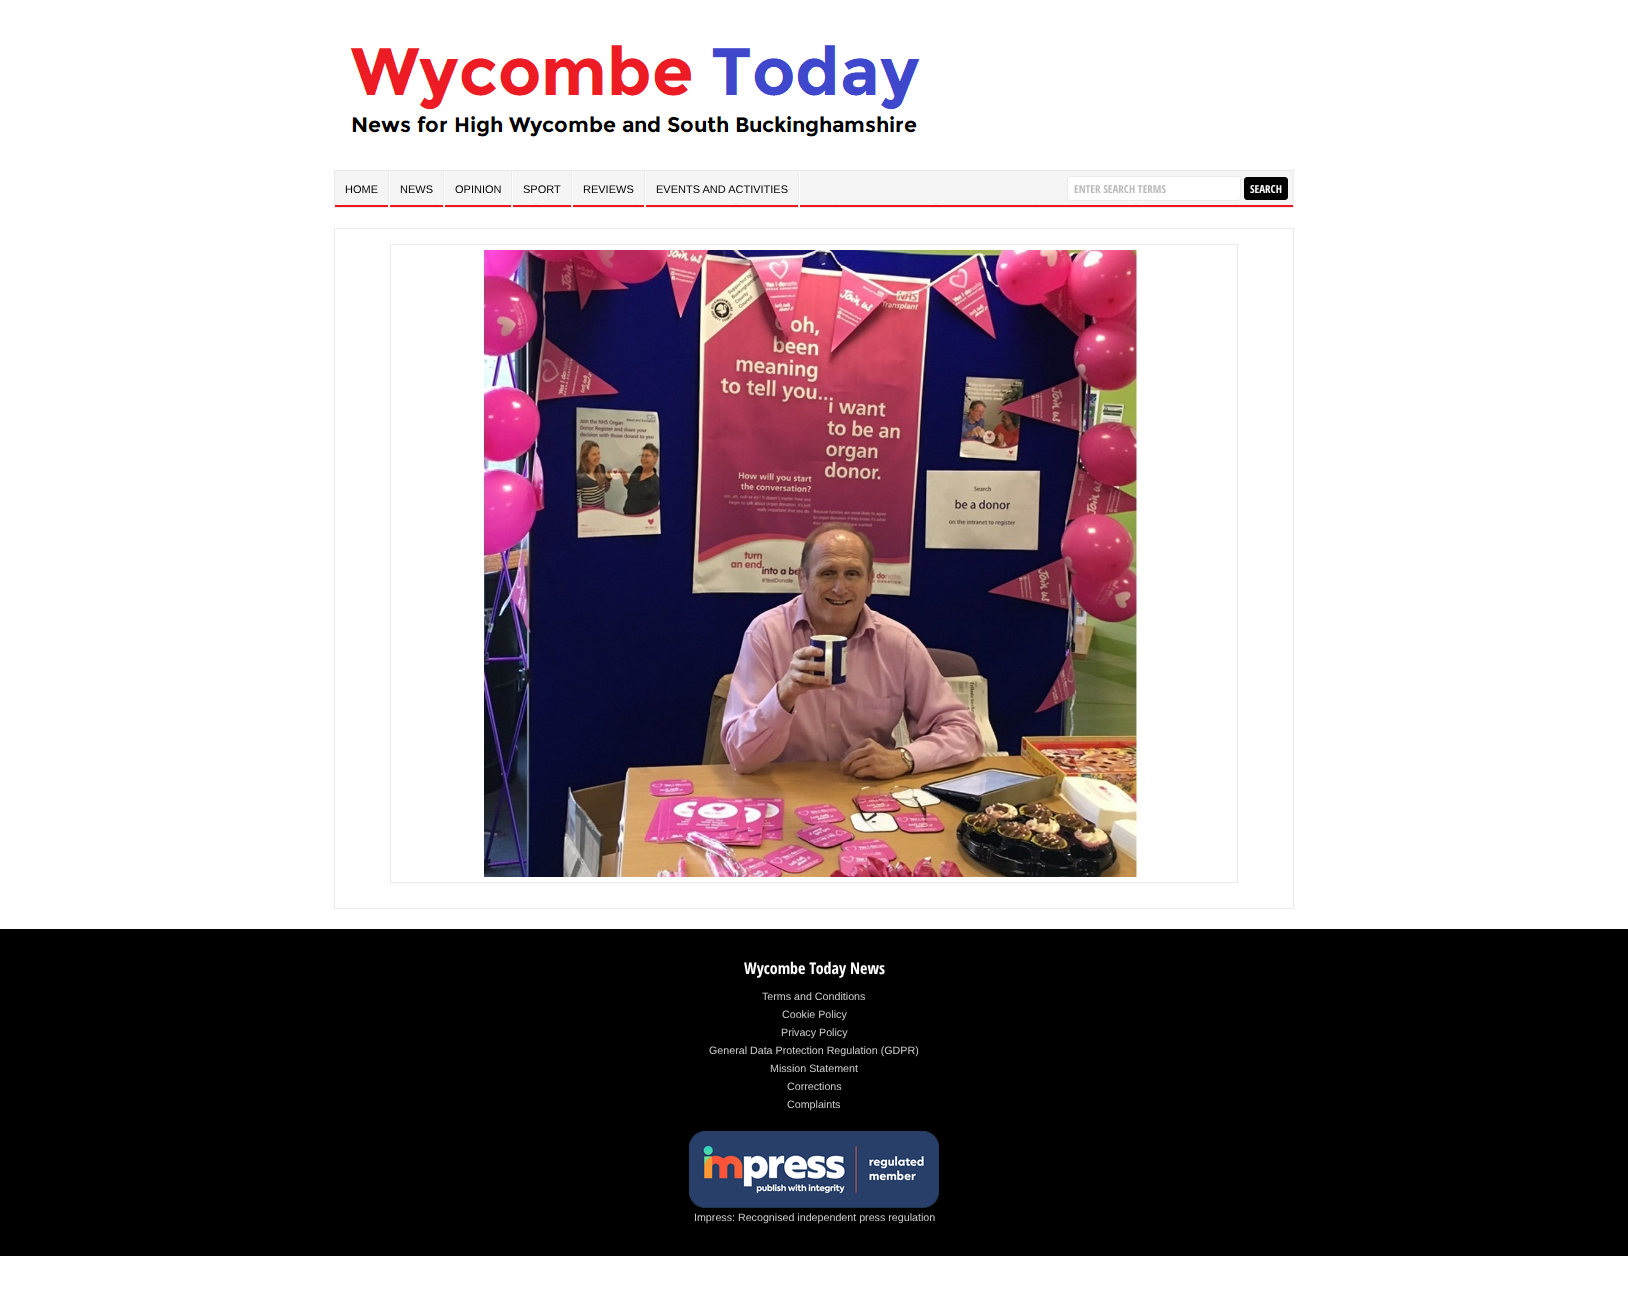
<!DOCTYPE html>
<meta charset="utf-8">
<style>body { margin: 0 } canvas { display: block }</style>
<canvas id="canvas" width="1628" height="1315"></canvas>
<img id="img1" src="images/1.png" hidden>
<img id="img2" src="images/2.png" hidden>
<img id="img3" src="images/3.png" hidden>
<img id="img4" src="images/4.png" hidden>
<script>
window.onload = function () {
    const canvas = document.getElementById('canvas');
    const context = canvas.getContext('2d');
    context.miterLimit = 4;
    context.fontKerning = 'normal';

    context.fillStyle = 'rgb(255, 255, 255)';
    context.fillRect(0, 0, 1628, 1315);
    context.drawImage(document.getElementById('img1'), 351, 45, 569, 92);
    context.drawImage(document.getElementById('img2'), 335, 171, 958, 36);
    context.strokeStyle = 'rgb(235, 235, 235)';
    context.strokeRect(334.5, 170.5, 959, 37);
    context.fillRect(389, 171, 1, 36);
    context.fillStyle = 'rgb(235, 235, 235)';
    context.fillRect(388, 171, 1, 36);
    context.fillStyle = 'rgb(255, 255, 255)';
    context.fillRect(444, 171, 1, 36);
    context.fillStyle = 'rgb(235, 235, 235)';
    context.fillRect(443, 171, 1, 36);
    context.fillStyle = 'rgb(255, 255, 255)';
    context.fillRect(512, 171, 1, 36);
    context.fillStyle = 'rgb(235, 235, 235)';
    context.fillRect(511, 171, 1, 36);
    context.fillStyle = 'rgb(255, 255, 255)';
    context.fillRect(572, 171, 1, 36);
    context.fillStyle = 'rgb(235, 235, 235)';
    context.fillRect(571, 171, 1, 36);
    context.fillStyle = 'rgb(255, 255, 255)';
    context.fillRect(645, 171, 1, 36);
    context.fillStyle = 'rgb(235, 235, 235)';
    context.fillRect(644, 171, 1, 36);
    context.fillStyle = 'rgb(255, 255, 255)';
    context.fillRect(799, 171, 1, 36);
    context.fillStyle = 'rgb(235, 235, 235)';
    context.fillRect(798, 171, 1, 36);
    context.fillStyle = 'rgb(255, 255, 255)';
    context.beginPath();
    context.roundRect(1067.5, 176.5, 173, 24, 2.5);
    context.fill();
    context.stroke();
    context.fillStyle = 'rgb(0, 0, 0)';
    context.beginPath();
    context.roundRect(1244.5, 177.5, 43, 22, 2.5);
    context.fill();
    context.strokeStyle = 'rgb(0, 0, 0)';
    context.stroke();
    context.strokeStyle = 'rgb(235, 235, 235)';
    context.strokeRect(334.5, 228.5, 959, 680);
    context.strokeRect(390.5, 244.5, 847, 638);
    context.drawImage(document.getElementById('img3'), 483, 250, 658, 627);
    context.fillRect(0, 929, 1628, 327);
    context.drawImage(document.getElementById('img4'), 689, 1131, 250, 77);
    context.font = '11px Liberation Sans';
    context.fillText('HOME', 345, 193);
    context.fillText('NEWS', 400, 193);
    context.fillText('OPINION', 455, 193);
    context.fillText('SPORT', 523, 193);
    context.fillText('REVIEWS', 583, 193);
    context.fillText('EVENTS AND ACTIVITIES', 656, 193);
    context.font = 'bold 11px Open Sans Condensed';
    context.fillStyle = 'rgb(187, 187, 187)';
    context.fillText('ENTER SEARCH TERMS', 1074, 193);
    context.fillStyle = 'rgb(255, 255, 255)';
    context.fillText('SEARCH', 1250, 193);
    context.font = 'bold 16px Open Sans Condensed';
    context.fillText('Wycombe Today News', 744, 974);
    context.font = '10.7px Liberation Sans';
    context.fillStyle = 'rgb(204, 204, 204)';
    context.fillText('Terms and Conditions', 762, 1000);
    context.fillText('Cookie Policy', 782, 1018);
    context.fillText('Privacy Policy', 781, 1036);
    context.fillText('General Data Protection Regulation (GDPR)', 709, 1054);
    context.fillText('Mission Statement', 770, 1072);
    context.fillText('Corrections', 787, 1090);
    context.fillText('Complaints', 787, 1108);
    context.fillText('Impress: Recognised independent press regulation', 694, 1221);
};
</script>
